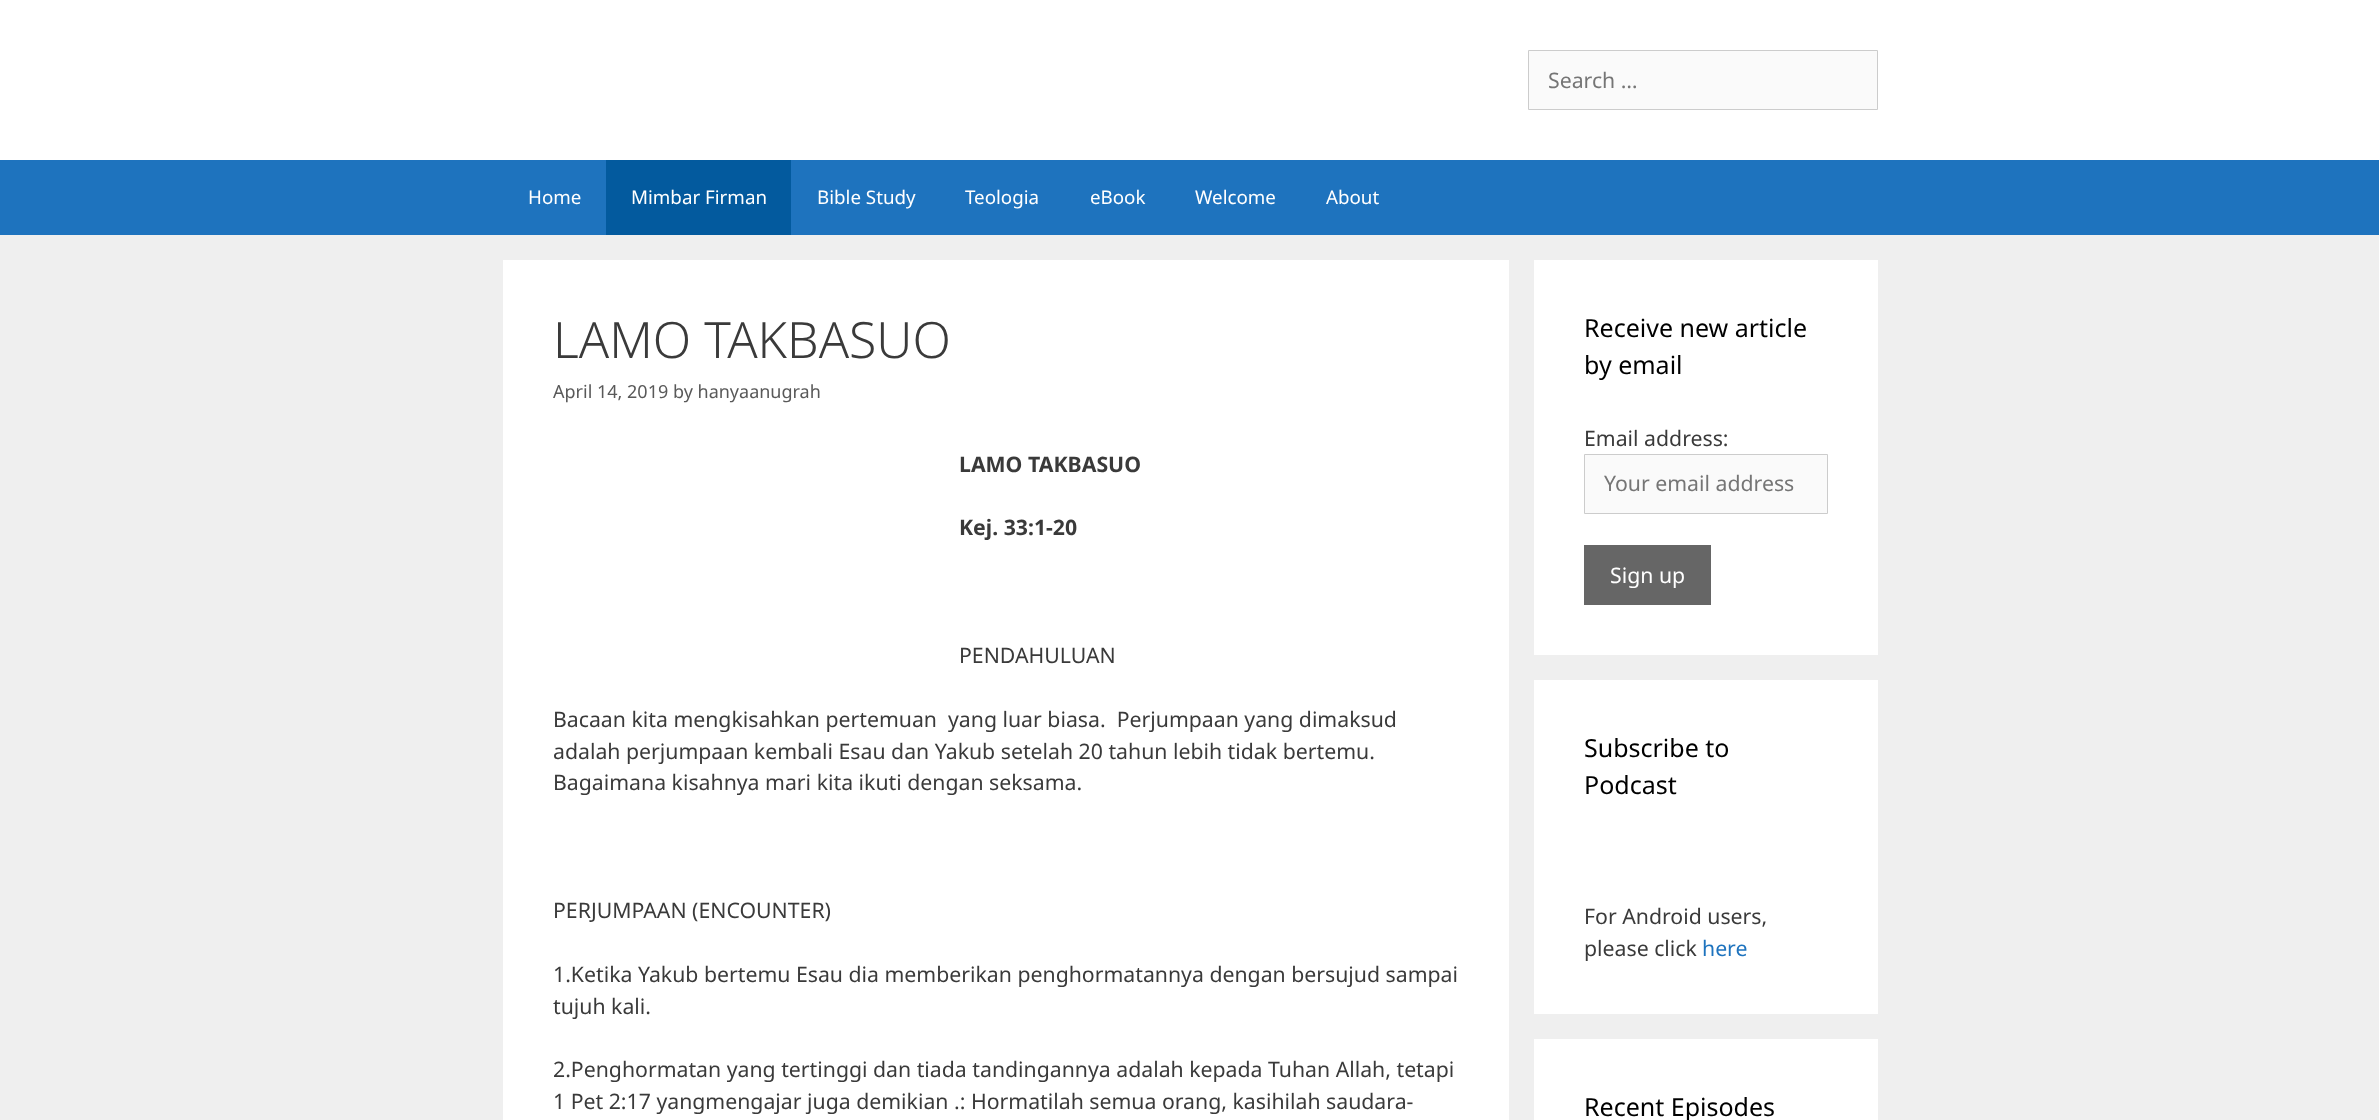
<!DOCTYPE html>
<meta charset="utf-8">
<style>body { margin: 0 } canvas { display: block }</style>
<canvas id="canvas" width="2379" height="1120"></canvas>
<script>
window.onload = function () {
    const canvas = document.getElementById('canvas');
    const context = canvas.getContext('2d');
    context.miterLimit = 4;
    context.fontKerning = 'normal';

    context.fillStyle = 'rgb(239, 239, 239)';
    context.fillRect(0, 0, 2379, 1120);
    context.fillStyle = 'rgb(255, 255, 255)';
    context.fillRect(0, 0, 2379, 160);
    context.fillStyle = 'rgb(250, 250, 250)';
    context.beginPath();
    context.rect(1528.5, 50.5, 349, 59);
    context.fill();
    context.strokeStyle = 'rgb(204, 204, 204)';
    context.stroke();
    context.fillStyle = 'rgb(30, 115, 190)';
    context.fillRect(0, 160, 2379, 75);
    context.fillStyle = 'rgb(3, 90, 158)';
    context.fillRect(606, 160, 185, 75);
    context.fillStyle = 'rgb(255, 255, 255)';
    context.fillRect(503, 260, 1006, 860);
    context.fillRect(1534, 260, 344, 395);
    context.fillStyle = 'rgb(250, 250, 250)';
    context.beginPath();
    context.rect(1584.5, 454.5, 243, 59);
    context.fill();
    context.stroke();
    context.fillStyle = 'rgb(102, 102, 102)';
    context.fillRect(1584, 545, 127, 60);
    context.fillStyle = 'rgb(255, 255, 255)';
    context.fillRect(1534, 680, 344, 334);
    context.fillRect(1534, 1039, 344, 81);
    context.font = '21.25px Noto Sans';
    context.fillStyle = 'rgb(117, 117, 117)';
    context.fillText('Search …', 1548, 88);
    context.font = '18.75px Noto Sans';
    context.fillStyle = 'rgb(255, 255, 255)';
    context.fillText('Home', 528, 204);
    context.fillText('Mimbar Firman', 631, 204);
    context.fillText('Bible Study', 817, 204);
    context.fillText('Teologia', 965, 204);
    context.fillText('eBook', 1090, 204);
    context.fillText('Welcome', 1195, 204);
    context.fillText('About', 1326, 204);
    context.font = '300 50px Noto Sans';
    context.fillStyle = 'rgb(58, 58, 58)';
    context.fillText('LAMO TAKBASUO', 553, 358);
    context.font = '18px Noto Sans';
    context.fillStyle = 'rgb(89, 89, 89)';
    context.fillText('April 14, 2019 by hanyaanugrah', 553, 398);
    context.font = 'bold 21.25px Noto Sans';
    context.fillStyle = 'rgb(58, 58, 58)';
    context.fillText('LAMO TAKBASUO', 959, 472);
    context.fillText('Kej. 33:1-20', 959, 535);
    context.font = '21.25px Noto Sans';
    context.fillText('PENDAHULUAN', 959, 663);
    context.fillText('Bacaan kita mengkisahkan pertemuan  yang luar biasa.  Perjumpaan yang dimaksud', 553, 727);
    context.fillText('adalah perjumpaan kembali Esau dan Yakub setelah 20 tahun lebih tidak bertemu.', 553, 759);
    context.fillText('Bagaimana kisahnya mari kita ikuti dengan seksama.', 553, 790);
    context.fillText('PERJUMPAAN (ENCOUNTER)', 553, 918);
    context.fillText('1.Ketika Yakub bertemu Esau dia memberikan penghormatannya dengan bersujud sampai', 553, 982);
    context.fillText('tujuh kali.', 553, 1014);
    context.fillText('2.Penghormatan yang tertinggi dan tiada tandingannya adalah kepada Tuhan Allah, tetapi', 553, 1077);
    context.fillText('1 Pet 2:17 yangmengajar juga demikian .: Hormatilah semua orang, kasihilah saudara-', 553, 1109);
    context.font = '25px Noto Sans';
    context.fillStyle = 'rgb(0, 0, 0)';
    context.fillText('Receive new article', 1584, 337);
    context.fillText('by email', 1584, 374);
    context.font = '21.25px Noto Sans';
    context.fillStyle = 'rgb(58, 58, 58)';
    context.fillText('Email address:', 1584, 446);
    context.fillStyle = 'rgb(117, 117, 117)';
    context.fillText('Your email address', 1604, 491);
    context.fillStyle = 'rgb(255, 255, 255)';
    context.fillText('Sign up', 1610, 583);
    context.font = '25px Noto Sans';
    context.fillStyle = 'rgb(0, 0, 0)';
    context.fillText('Subscribe to', 1584, 757);
    context.fillText('Podcast', 1584, 794);
    context.font = '21.25px Noto Sans';
    context.fillStyle = 'rgb(58, 58, 58)';
    context.fillText('For Android users,', 1584, 924);
    context.fillText('please click', 1584, 956);
    context.fillStyle = 'rgb(30, 115, 190)';
    context.fillText('here', 1702, 956);
    context.font = '25px Noto Sans';
    context.fillStyle = 'rgb(0, 0, 0)';
    context.fillText('Recent Episodes', 1584, 1116);
};
</script>
